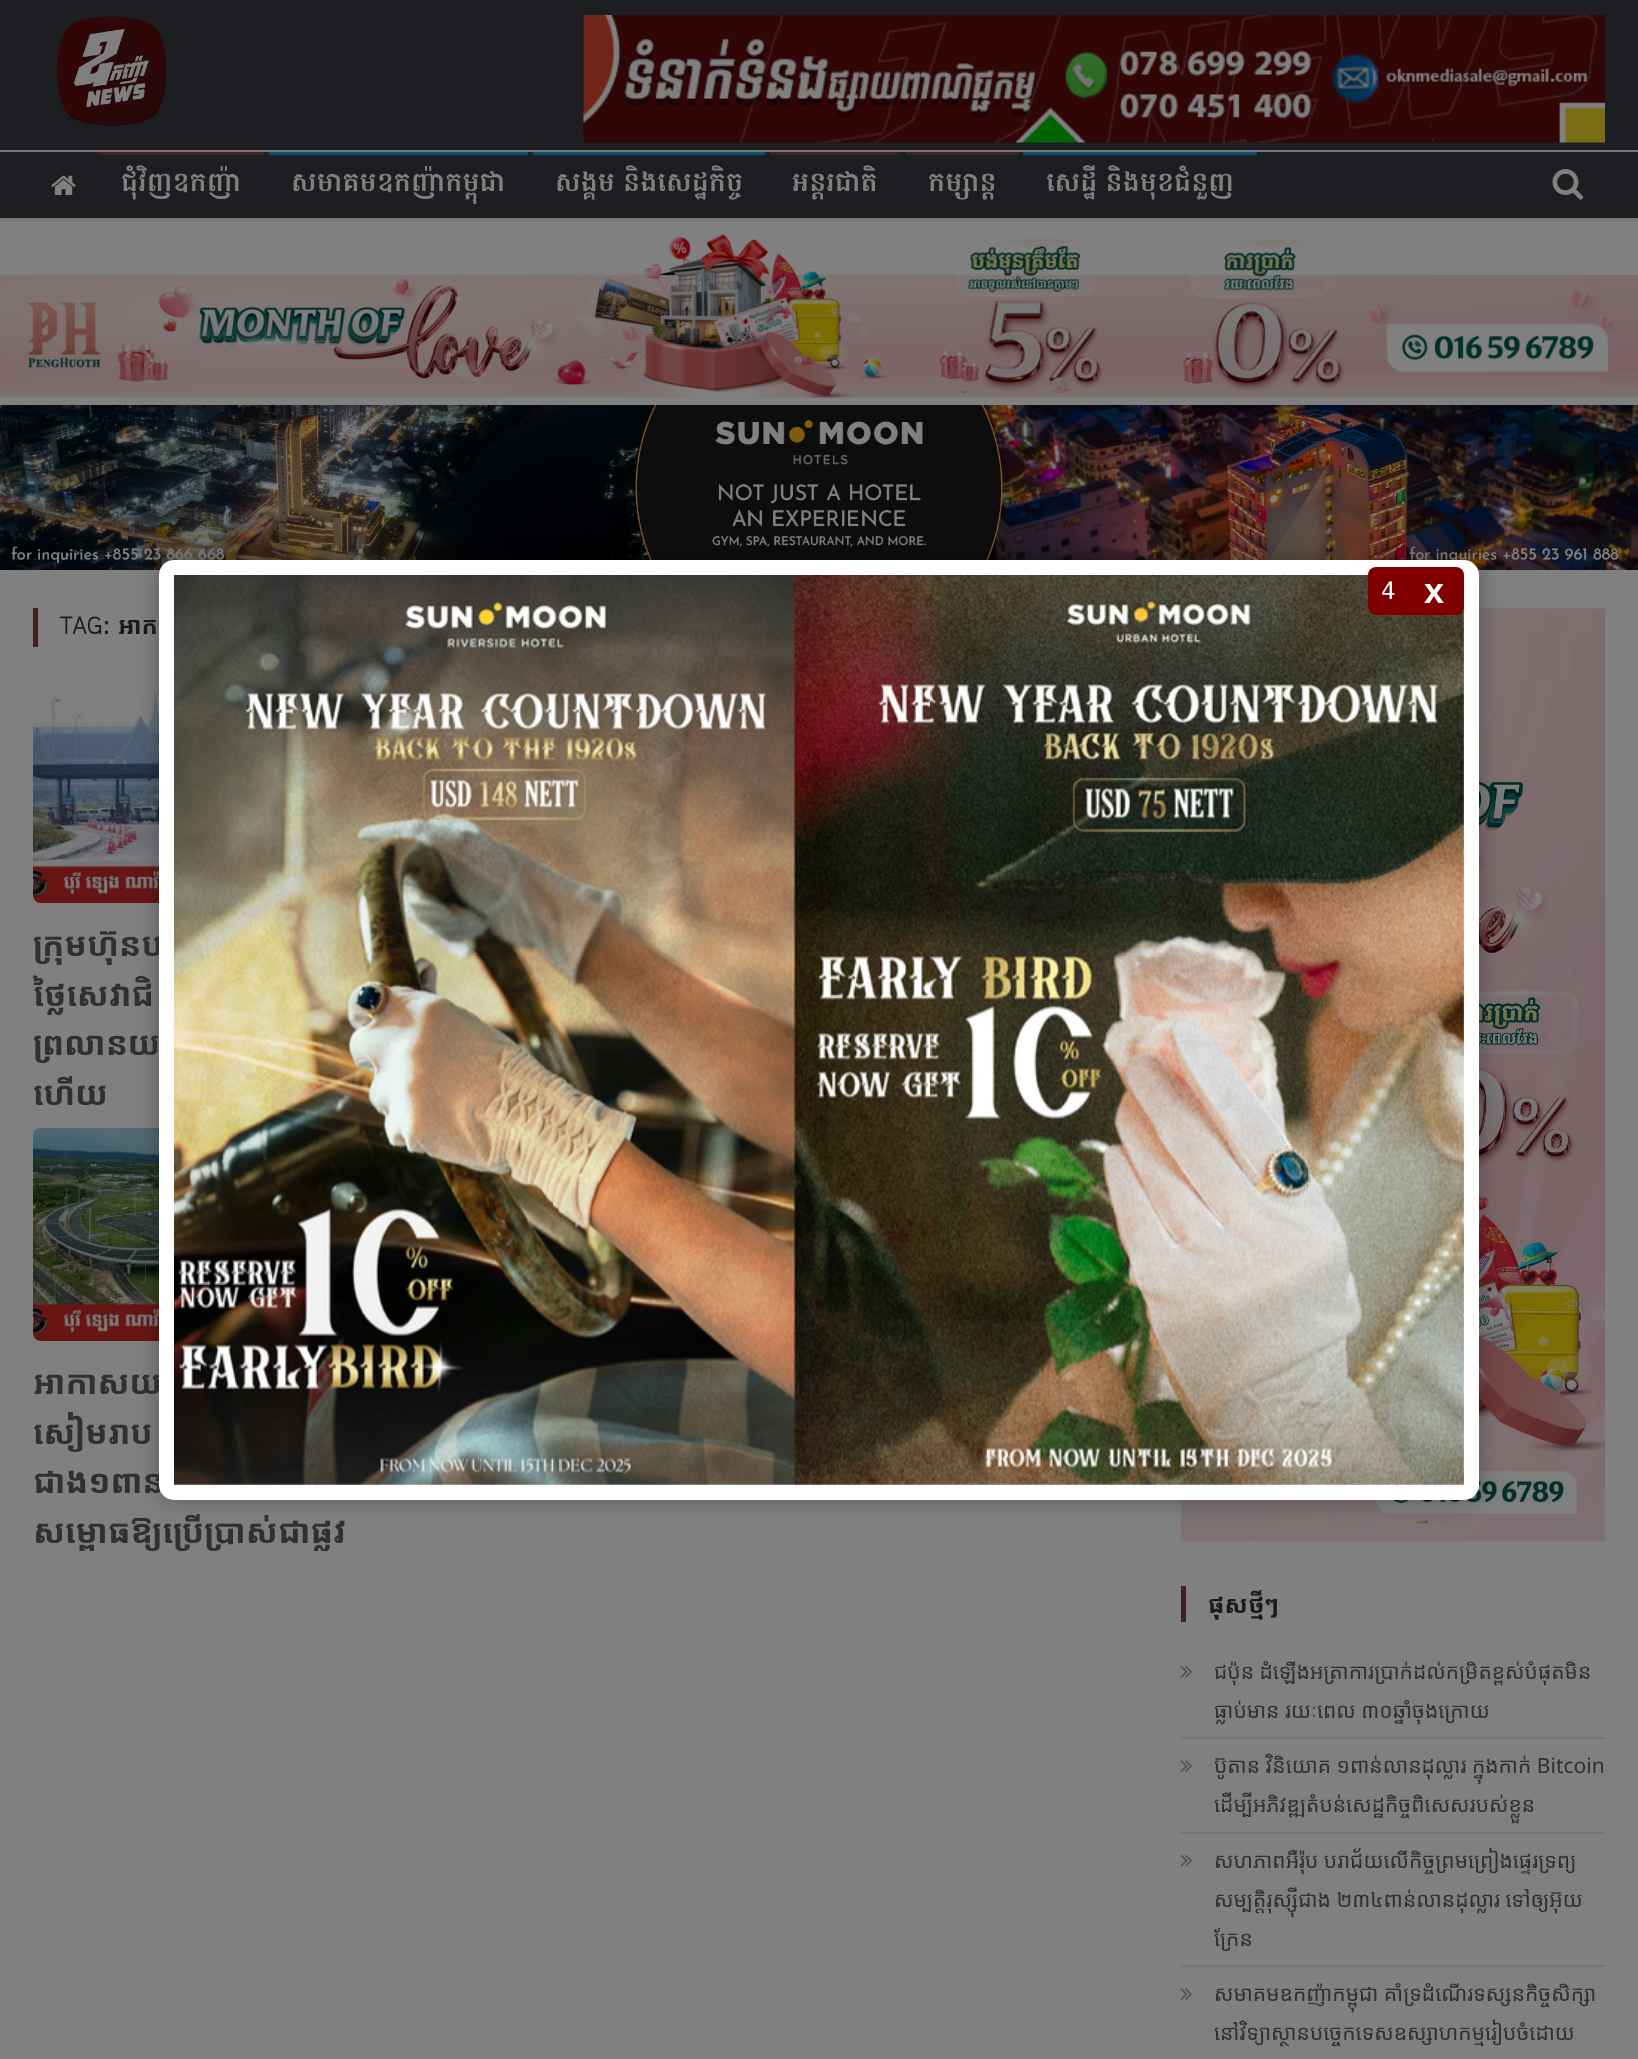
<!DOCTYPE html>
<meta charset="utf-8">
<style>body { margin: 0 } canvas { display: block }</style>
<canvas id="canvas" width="1638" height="2059"></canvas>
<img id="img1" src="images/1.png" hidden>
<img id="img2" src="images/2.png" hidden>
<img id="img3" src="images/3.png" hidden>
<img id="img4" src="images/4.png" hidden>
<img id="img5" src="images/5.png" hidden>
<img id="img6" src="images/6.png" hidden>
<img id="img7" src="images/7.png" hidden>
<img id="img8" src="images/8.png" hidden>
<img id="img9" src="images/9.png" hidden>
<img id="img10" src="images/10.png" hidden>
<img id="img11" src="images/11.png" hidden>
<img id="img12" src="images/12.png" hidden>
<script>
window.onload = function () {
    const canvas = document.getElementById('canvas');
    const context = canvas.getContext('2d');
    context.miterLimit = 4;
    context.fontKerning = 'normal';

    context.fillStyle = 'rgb(128, 128, 128)';
    context.fillRect(0, 0, 1638, 2059);
    context.fillStyle = 'rgb(28, 30, 33)';
    context.fillRect(0, 0, 1638, 150);
    context.drawImage(document.getElementById('img1'), 57, 16, 110, 110);
    context.drawImage(document.getElementById('img2'), 583, 15, 1022, 128);
    context.fillRect(0, 152, 1638, 66);
    context.fillStyle = 'rgb(119, 119, 119)';
    context.fillRect(0, 150, 1638, 2);
    context.fillRect(0, 218, 1638, 2);
    context.drawImage(document.getElementById('img3'), 51, 175, 25, 20);
    context.fillStyle = 'rgb(64, 32, 33)';
    context.fillRect(99, 152, 165, 3);
    context.fillStyle = 'rgb(0, 85, 112)';
    context.fillRect(269, 152, 259, 3);
    context.fillRect(533, 152, 232, 3);
    context.fillStyle = 'rgb(64, 32, 33)';
    context.fillRect(770, 152, 130, 3);
    context.fillRect(906, 152, 113, 3);
    context.fillStyle = 'rgb(0, 85, 112)';
    context.fillRect(1023, 152, 234, 3);
    context.drawImage(document.getElementById('img4'), 1552, 169, 32, 31);
    context.drawImage(document.getElementById('img5'), 0, 234, 1638, 164);
    context.drawImage(document.getElementById('img6'), 0, 405, 1638, 165);
    context.fillStyle = 'rgb(64, 32, 33)';
    context.fillRect(33, 608, 5, 39);
    context.drawImage(document.getElementById('img7'), 33, 691, 126, 212);
    context.drawImage(document.getElementById('img8'), 33, 1128, 126, 213);
    context.drawImage(document.getElementById('img9'), 1180, 607, 425, 934);
    context.fillRect(1181, 1586, 5, 36);
    context.fillStyle = 'rgb(115, 115, 115)';
    context.fillRect(1181, 1737, 424, 2);
    context.drawImage(document.getElementById('img10'), 1180, 1666, 12, 12);
    context.fillRect(1181, 1832, 424, 2);
    context.drawImage(document.getElementById('img11'), 1180, 1760, 12, 12);
    context.fillRect(1181, 1965, 424, 2);
    context.drawImage(document.getElementById('img10'), 1180, 1855, 12, 12);
    context.drawImage(document.getElementById('img11'), 1180, 1988, 12, 12);
    context.fillStyle = 'rgba(0, 0, 0, 0.3)';
    context.filter = 'blur(11px)';
    context.beginPath();
    context.roundRect(159, 560, 1320, 940, 15);
    context.fill();
    context.filter = 'none';
    context.font = 'bold 27px Hanuman';
    context.fillStyle = 'rgb(128, 128, 128)';
    context.fillText('ជុំវិញឧកញ៉ា', 121, 191);
    context.fillText('សមាគមឧកញ៉ាកម្ពុជា', 291, 191);
    context.fillText('សង្គម និងសេដ្ឋកិច្ច', 555, 191);
    context.fillText('អន្តរជាតិ', 792, 191);
    context.fillText('កម្សាន្ត', 928, 191);
    context.fillText('សេដ្ឋី និងមុខជំនួញ', 1046, 191);
    context.font = 'bold 24px Hanuman';
    context.fillStyle = 'rgb(26, 26, 26)';
    context.fillText('TAG:', 60, 634);
    context.font = 'bold 24px Noto Sans Khmer';
    context.fillText('អាក', 118, 634);
    context.font = 'bold 33px Noto Sans Khmer';
    context.fillStyle = 'rgb(48, 48, 48)';
    context.fillText('ក្រុមហ៊ុនប', 33, 956);
    context.fillText('ថ្លៃសេវាជិ', 33, 1006);
    context.fillText('ព្រលានយ', 33, 1055);
    context.fillText('ហើយ', 33, 1105);
    context.fillText('អាកាសយ', 33, 1394);
    context.fillText('សៀមរាប', 33, 1444);
    context.fillText('ជាង១ពាន', 33, 1493);
    context.save();
    context.beginPath();
    context.roundRect(11, 1113, 381, 438, 8);
    context.clip();
    context.fillText('សម្ពោធឱ្យប្រើប្រាស់ជាផ្លូវ', 33, 1543);
    context.restore();
    context.font = 'bold 24px Noto Sans Khmer';
    context.fillStyle = 'rgb(26, 26, 26)';
    context.fillText('ផុសថ្មីៗ', 1208, 1613);
    context.font = '21px Noto Sans Khmer';
    context.fillStyle = 'rgb(48, 48, 48)';
    context.fillText('ជប៉ុន ដំឡើងអត្រាការប្រាក់ដល់កម្រិតខ្ពស់បំផុតមិន', 1214, 1679);
    context.fillText('ធ្លាប់មាន រយៈពេល ៣០ឆ្នាំចុងក្រោយ', 1214, 1718);
    context.fillText('ប៊ូតាន វិនិយោគ ១ពាន់លានដុល្លារ ក្នុងកាក់ Bitcoin', 1214, 1773);
    context.fillText('ដើម្បីអភិវឌ្ឍតំបន់សេដ្ឋកិច្ចពិសេសរបស់ខ្លួន', 1214, 1812);
    context.fillText('សហភាពអឺរ៉ុប បរាជ័យលើកិច្ចព្រមព្រៀងផ្ទេរទ្រព្យ', 1214, 1868);
    context.fillText('សម្បត្តិរុស្ស៊ីជាង ២៣៤ពាន់លានដុល្លារ ទៅឲ្យអ៊ុយ', 1214, 1907);
    context.fillText('ក្រែន', 1214, 1946);
    context.fillText('សមាគមឧកញ៉ាកម្ពុជា គាំទ្រដំណើរទស្សនកិច្ចសិក្សា', 1214, 2001);
    context.fillText('នៅវិទ្យាស្ថានបច្ចេកទេសឧស្សាហកម្មរៀបចំដោយ', 1214, 2040);
    context.fillStyle = 'rgb(255, 255, 255)';
    context.beginPath();
    context.roundRect(159, 560, 1320, 940, 15);
    context.fill();
    context.drawImage(document.getElementById('img12'), 174, 575, 1290, 910);
    context.fillStyle = 'rgb(128, 0, 0)';
    context.beginPath();
    context.roundRect(1368, 567, 72, 48, 8);
    context.fill();
    context.font = '24px DejaVu Sans Mono';
    context.fillStyle = 'rgb(255, 255, 255)';
    context.fillText('4', 1381, 599);
    context.fillStyle = 'rgb(128, 0, 0)';
    context.beginPath();
    context.roundRect(1404, 567, 60, 48, 8);
    context.fill();
    context.font = 'bold 36px Liberation Sans';
    context.fillStyle = 'rgb(255, 255, 255)';
    context.fillText('x', 1424, 603);
};
</script>
